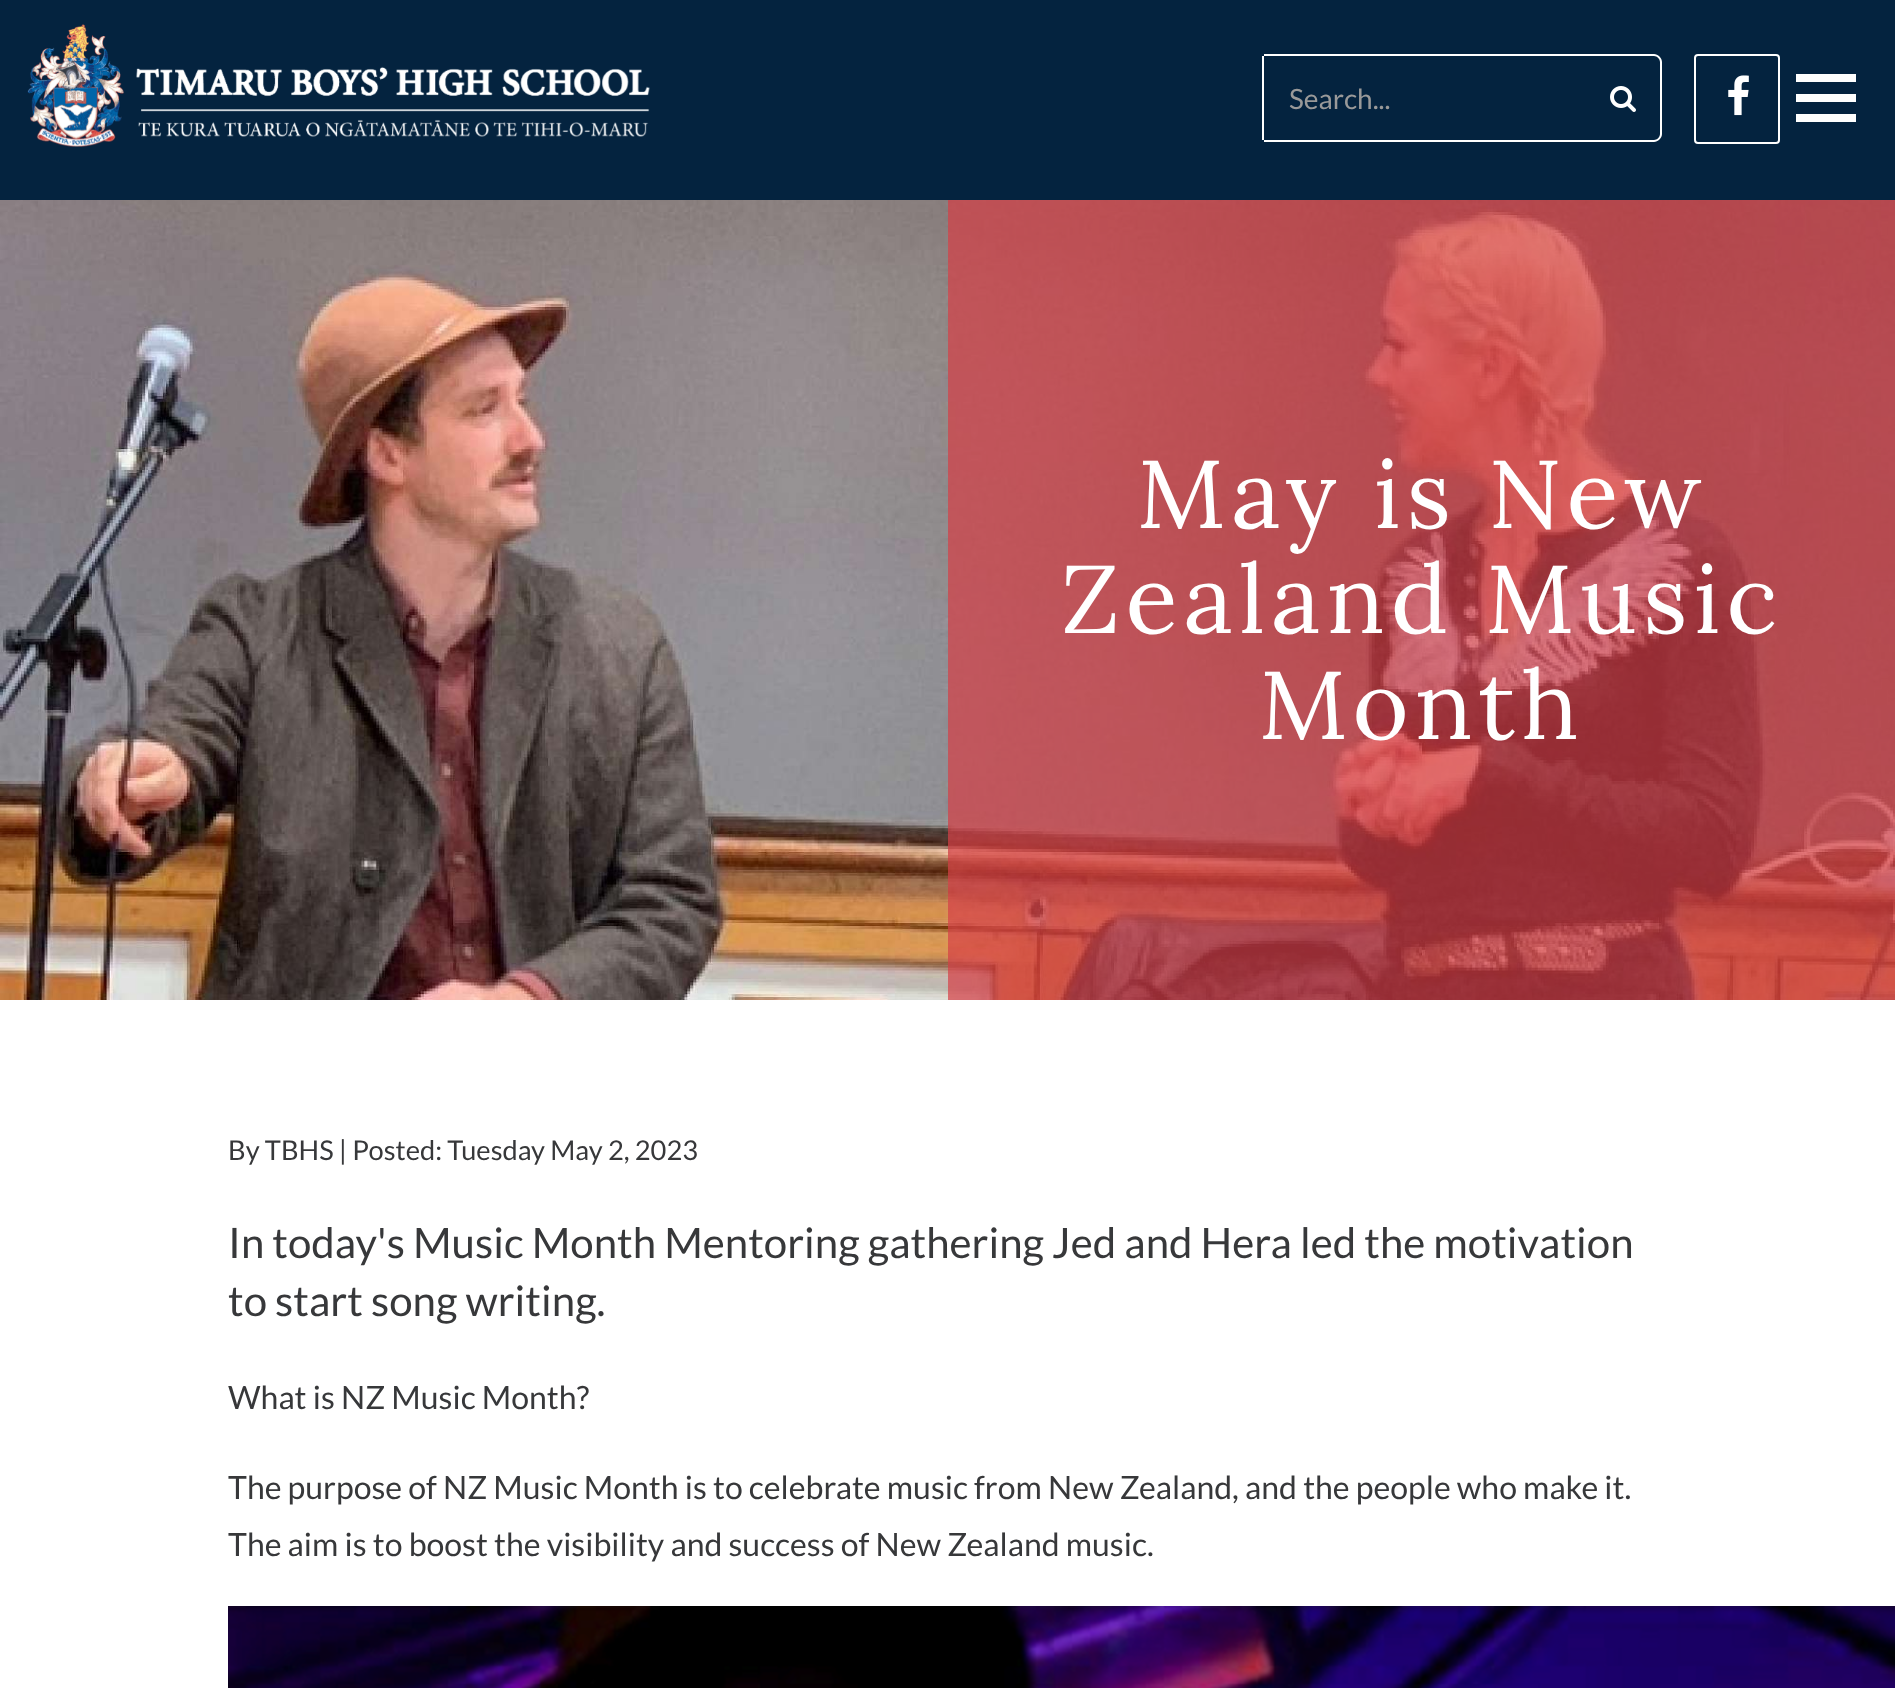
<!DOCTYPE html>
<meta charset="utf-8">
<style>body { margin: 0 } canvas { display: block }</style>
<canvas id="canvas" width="1895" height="1688"></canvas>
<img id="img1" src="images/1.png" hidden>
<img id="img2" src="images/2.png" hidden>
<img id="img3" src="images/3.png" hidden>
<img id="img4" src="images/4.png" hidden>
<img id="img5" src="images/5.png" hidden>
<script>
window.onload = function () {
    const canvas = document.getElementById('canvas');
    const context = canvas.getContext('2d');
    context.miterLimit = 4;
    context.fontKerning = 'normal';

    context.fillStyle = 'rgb(255, 255, 255)';
    context.fillRect(0, 0, 1895, 1688);
    context.fillStyle = 'rgb(4, 35, 63)';
    context.fillRect(0, 0, 1895, 200);
    context.drawImage(document.getElementById('img1'), 27, 24, 623, 123);
    context.fillStyle = 'rgb(255, 255, 255)';
    context.fillRect(1264, 54, 322, 2);
    context.fillRect(1264, 140, 322, 2);
    context.fillRect(1262, 56, 2, 84);
    context.beginPath();
    context.moveTo(1586, 54);
    context.lineTo(1654, 54);
    context.bezierCurveTo(1658, 54, 1662, 58, 1662, 62);
    context.lineTo(1662, 134);
    context.bezierCurveTo(1662, 138, 1658, 142, 1654, 142);
    context.lineTo(1586, 142);
    context.closePath();
    context.moveTo(1586, 56);
    context.lineTo(1654, 56);
    context.bezierCurveTo(1657, 56, 1660, 59, 1660, 62);
    context.lineTo(1660, 134);
    context.bezierCurveTo(1660, 137, 1657, 140, 1654, 140);
    context.lineTo(1586, 140);
    context.closePath();
    context.fill('evenodd');
    context.drawImage(document.getElementById('img2'), 1610, 86, 26, 26);
    context.beginPath();
    context.roundRect(1695, 55, 84, 88, 3);
    context.strokeStyle = 'rgb(255, 255, 255)';
    context.lineWidth = 2;
    context.stroke();
    context.drawImage(document.getElementById('img3'), 1728, 75, 21, 41);
    context.fillRect(1796, 74, 60, 8);
    context.fillRect(1796, 94, 60, 8);
    context.fillRect(1796, 114, 60, 8);
    context.drawImage(document.getElementById('img4'), 0, 200, 1895, 800);
    context.fillStyle = 'rgba(213, 63, 70, 0.7)';
    context.fillRect(948, 200, 947, 800);
    context.drawImage(document.getElementById('img5'), 228, 1606, 1667, 82);
    context.font = '28px Lato';
    context.fillStyle = 'rgb(153, 153, 153)';
    context.fillText('Search...', 1289, 109);
    context.letterSpacing = '6px';
    context.font = '96px Lora';
    context.fillStyle = 'rgb(255, 255, 255)';
    context.fillText('May is New', 1137, 528);
    context.fillText('Zealand Music', 1061, 633);
    context.fillText('Month', 1259, 739);
    context.letterSpacing = '0px';
    context.font = '27.25px Lato';
    context.fillStyle = 'rgb(55, 56, 58)';
    context.fillText('By TBHS | Posted: Tuesday May 2, 2023', 228, 1160);
    context.font = '42px Lato';
    context.fillText('In today\'s Music Month Mentoring gathering Jed and Hera led the motivation', 228, 1258);
    context.fillText('to start song writing.', 228, 1316);
    context.font = '32px Lato';
    context.fillText('What is NZ Music Month?', 228, 1409);
    context.fillText('The purpose of NZ Music Month is to celebrate music from New Zealand, and the people who make it.', 228, 1499);
    context.fillText('The aim is to boost the visibility and success of New Zealand music.', 228, 1556);
};
</script>
